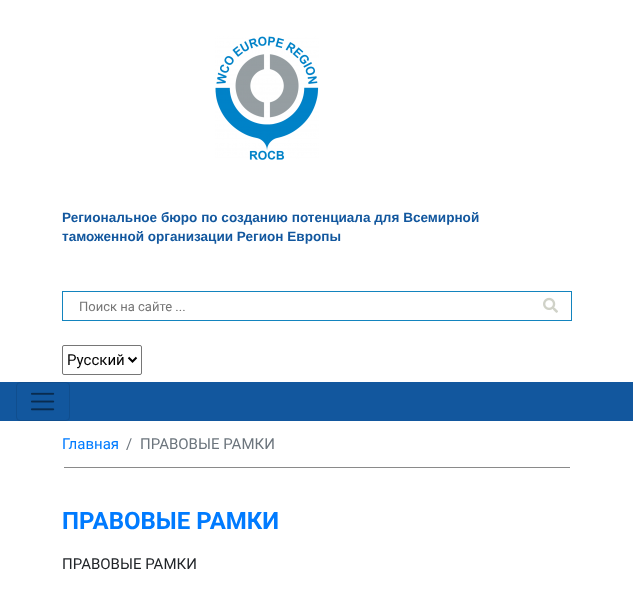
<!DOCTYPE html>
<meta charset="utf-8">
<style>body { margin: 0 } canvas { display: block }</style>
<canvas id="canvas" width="633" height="613"></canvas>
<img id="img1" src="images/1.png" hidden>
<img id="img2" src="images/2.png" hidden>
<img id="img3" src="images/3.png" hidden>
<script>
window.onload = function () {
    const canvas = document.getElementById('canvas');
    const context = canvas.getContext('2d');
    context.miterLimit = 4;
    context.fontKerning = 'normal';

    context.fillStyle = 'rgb(255, 255, 255)';
    context.fillRect(0, 0, 633, 613);
    context.drawImage(document.getElementById('img1'), 215, 36, 104, 124);
    context.strokeStyle = 'rgb(19, 132, 190)';
    context.strokeRect(62.5, 291.5, 509, 29);
    context.drawImage(document.getElementById('img2'), 543, 297, 15, 16);
    context.beginPath();
    context.roundRect(62.5, 345.5, 79, 29, 1.5);
    context.strokeStyle = 'rgb(118, 118, 118)';
    context.stroke();
    context.beginPath();
    context.moveTo(128.5, 357.5);
    context.lineTo(132.5, 361.5);
    context.lineTo(136.5, 357.5);
    context.strokeStyle = 'rgb(0, 0, 0)';
    context.lineWidth = 2;
    context.stroke();
    context.fillStyle = 'rgb(18, 87, 158)';
    context.fillRect(0, 382, 633, 39);
    context.beginPath();
    context.roundRect(16.5, 382.5, 53, 38, 3.5);
    context.strokeStyle = 'rgb(16, 78, 142)';
    context.lineWidth = 1;
    context.stroke();
    context.drawImage(document.getElementById('img3'), 31, 392, 24, 19);
    context.fillStyle = 'rgb(138, 138, 138)';
    context.fillRect(64, 467, 506, 1);
    context.font = 'bold 13.55px Liberation Sans';
    context.fillStyle = 'rgb(18, 87, 158)';
    context.fillText('Региональное бюро по созданию потенциала для Всемирной', 62, 222);
    context.fillText('таможенной организации Регион Европы', 62, 241);
    context.font = '13px Roboto';
    context.fillStyle = 'rgb(117, 117, 117)';
    context.fillText('Поиск на сайте ...', 79, 311);
    context.font = '15px Roboto';
    context.fillStyle = 'rgb(0, 0, 0)';
    context.fillText('Русский', 67, 365);
    context.fillStyle = 'rgb(0, 123, 255)';
    context.fillText('Главная', 62, 449);
    context.fillStyle = 'rgb(108, 117, 125)';
    context.fillText('/', 126, 449);
    context.fillText('ПРАВОВЫЕ РАМКИ', 140, 449);
    context.font = 'bold 24px Roboto';
    context.fillStyle = 'rgb(0, 123, 255)';
    context.fillText('ПРАВОВЫЕ РАМКИ', 62, 529);
    context.font = '15px Roboto';
    context.fillStyle = 'rgb(33, 37, 41)';
    context.fillText('ПРАВОВЫЕ РАМКИ', 62, 569);
};
</script>
